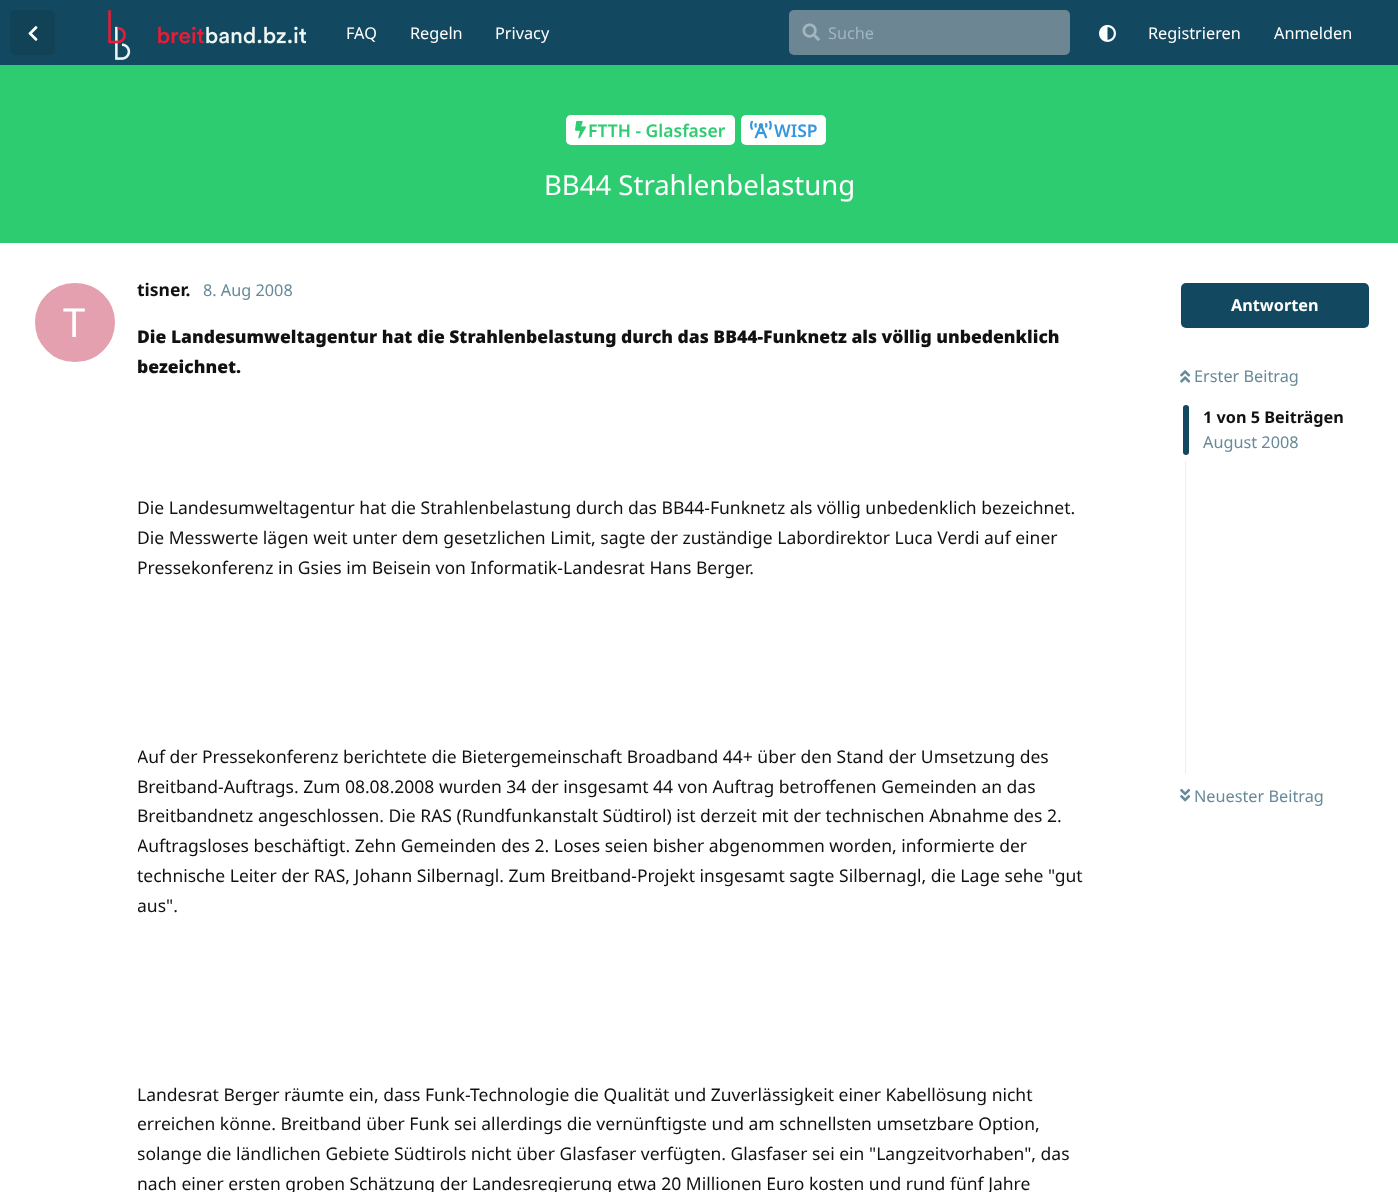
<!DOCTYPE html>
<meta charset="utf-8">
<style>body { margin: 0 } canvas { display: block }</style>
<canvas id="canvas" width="1398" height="1192"></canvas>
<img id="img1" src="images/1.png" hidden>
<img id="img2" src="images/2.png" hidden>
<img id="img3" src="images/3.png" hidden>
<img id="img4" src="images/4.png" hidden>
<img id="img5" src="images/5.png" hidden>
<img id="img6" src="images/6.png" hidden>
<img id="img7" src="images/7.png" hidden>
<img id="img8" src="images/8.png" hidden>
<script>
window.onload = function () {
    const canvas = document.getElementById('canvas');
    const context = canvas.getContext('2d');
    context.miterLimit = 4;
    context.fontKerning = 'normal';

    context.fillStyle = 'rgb(255, 255, 255)';
    context.fillRect(0, 0, 1398, 1192);
    context.fillStyle = 'rgb(19, 73, 96)';
    context.fillRect(0, 0, 1398, 65);
    context.fillStyle = 'rgb(17, 66, 86)';
    context.beginPath();
    context.roundRect(10, 10, 45, 45, 5);
    context.fill();
    context.drawImage(document.getElementById('img1'), 28, 26, 10, 15);
    context.drawImage(document.getElementById('img2'), 108, 10, 198, 50);
    context.fillStyle = 'rgb(108, 135, 147)';
    context.beginPath();
    context.roundRect(789, 10, 281, 45, 5);
    context.fill();
    context.drawImage(document.getElementById('img3'), 802, 23, 18, 18);
    context.drawImage(document.getElementById('img4'), 1099, 25, 17, 17);
    context.fillStyle = 'rgb(46, 204, 113)';
    context.fillRect(0, 65, 1398, 178);
    context.fillStyle = 'rgb(255, 255, 255)';
    context.beginPath();
    context.roundRect(566, 115, 169, 30, 5);
    context.fill();
    context.drawImage(document.getElementById('img5'), 575, 120, 11, 19);
    context.beginPath();
    context.roundRect(741, 115, 85, 30, 5);
    context.fill();
    context.drawImage(document.getElementById('img6'), 750, 120, 22, 19);
    context.fillStyle = 'rgb(229, 160, 175)';
    context.beginPath();
    context.roundRect(33, 281, 84, 83, 41.5);
    context.fill();
    context.strokeStyle = 'rgb(255, 255, 255)';
    context.lineWidth = 4;
    context.stroke();
    context.fillStyle = 'rgb(19, 73, 96)';
    context.beginPath();
    context.roundRect(1181, 283, 188, 45, 5);
    context.fill();
    context.drawImage(document.getElementById('img7'), 1180, 370, 11, 13);
    context.beginPath();
    context.roundRect(1183, 405, 6, 50, 3);
    context.fill();
    context.fillStyle = 'rgb(228, 241, 246)';
    context.fillRect(1185, 461, 1, 313);
    context.drawImage(document.getElementById('img8'), 1180, 788, 11, 14);
    context.font = '16.25px Noto Sans';
    context.fillStyle = 'rgb(255, 255, 255)';
    context.fillText('FAQ', 346, 39);
    context.fillText('Regeln', 410, 39);
    context.fillText('Privacy', 495, 39);
    context.fillStyle = 'rgb(161, 182, 191)';
    context.fillText('Suche', 828, 39);
    context.fillStyle = 'rgb(255, 255, 255)';
    context.fillText('Registrieren', 1148, 39);
    context.fillText('Anmelden', 1274, 39);
    context.font = '600 17.5px Noto Sans';
    context.fillStyle = 'rgb(46, 204, 113)';
    context.fillText('FTTH - Glasfaser', 588, 137);
    context.fillStyle = 'rgb(52, 152, 219)';
    context.fillText('WISP', 774, 137);
    context.font = '27.5px Noto Sans';
    context.fillStyle = 'rgb(255, 255, 255)';
    context.fillText('BB44 Strahlenbelastung', 544, 195);
    context.font = 'bold 17.5px Noto Sans';
    context.fillStyle = 'rgb(17, 17, 17)';
    context.fillText('tisner.', 137, 296);
    context.font = '40px Noto Sans';
    context.fillStyle = 'rgb(255, 255, 255)';
    context.fillText('T', 63, 337);
    context.font = '16.25px Noto Sans';
    context.fillStyle = 'rgb(102, 138, 153)';
    context.fillText('8. Aug 2008', 203, 296);
    context.font = '900 17.5px Noto Sans';
    context.fillStyle = 'rgb(17, 17, 17)';
    context.fillText('Die Landesumweltagentur hat die Strahlenbelastung durch das BB44-Funknetz als völlig unbedenklich', 137, 343);
    context.fillText('bezeichnet.', 137, 373);
    context.font = '17.5px Noto Sans';
    context.fillText('Die Landesumweltagentur hat die Strahlenbelastung durch das BB44-Funknetz als völlig unbedenklich bezeichnet.', 137, 514);
    context.fillText('Die Messwerte lägen weit unter dem gesetzlichen Limit, sagte der zuständige Labordirektor Luca Verdi auf einer', 137, 544);
    context.fillText('Pressekonferenz in Gsies im Beisein von Informatik-Landesrat Hans Berger.', 137, 574);
    context.save();
    context.beginPath();
    context.rect(138, 321, 950, 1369);
    context.clip();
    context.fillText('Auf der Pressekonferenz berichtete die Bietergemeinschaft Broadband 44+ über den Stand der Umsetzung des', 137, 763);
    context.restore();
    context.fillText('Breitband-Auftrags. Zum 08.08.2008 wurden 34 der insgesamt 44 von Auftrag betroffenen Gemeinden an das', 137, 793);
    context.fillText('Breitbandnetz angeschlossen. Die RAS (Rundfunkanstalt Südtirol) ist derzeit mit der technischen Abnahme des 2.', 137, 822);
    context.save();
    context.beginPath();
    context.rect(138, 321, 950, 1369);
    context.clip();
    context.fillText('Auftragsloses beschäftigt. Zehn Gemeinden des 2. Loses seien bisher abgenommen worden, informierte der', 137, 852);
    context.restore();
    context.fillText('technische Leiter der RAS, Johann Silbernagl. Zum Breitband-Projekt insgesamt sagte Silbernagl, die Lage sehe "gut', 137, 882);
    context.save();
    context.beginPath();
    context.rect(138, 321, 950, 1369);
    context.clip();
    context.fillText('aus".', 137, 912);
    context.restore();
    context.fillText('Landesrat Berger räumte ein, dass Funk-Technologie die Qualität und Zuverlässigkeit einer Kabellösung nicht', 137, 1101);
    context.fillText('erreichen könne. Breitband über Funk sei allerdings die vernünftigste und am schnellsten umsetzbare Option,', 137, 1130);
    context.save();
    context.beginPath();
    context.rect(138, 321, 950, 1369);
    context.clip();
    context.fillText('solange die ländlichen Gebiete Südtirols nicht über Glasfaser verfügten. Glasfaser sei ein "Langzeitvorhaben", das', 137, 1160);
    context.restore();
    context.fillText('nach einer ersten groben Schätzung der Landesregierung etwa 20 Millionen Euro kosten und rund fünf Jahre', 137, 1190);
    context.font = 'bold 16.25px Noto Sans';
    context.fillStyle = 'rgb(255, 255, 255)';
    context.fillText('Antworten', 1231, 311);
    context.font = '16.25px Noto Sans';
    context.fillStyle = 'rgb(102, 138, 153)';
    context.fillText('Erster Beitrag', 1194, 382);
    context.font = 'bold 16.25px Noto Sans';
    context.fillStyle = 'rgb(17, 17, 17)';
    context.fillText('1 von 5 Beiträgen', 1203, 423);
    context.font = '16.25px Noto Sans';
    context.fillStyle = 'rgb(102, 138, 153)';
    context.fillText('August 2008', 1203, 448);
    context.fillText('Neuester Beitrag', 1194, 802);
};
</script>
